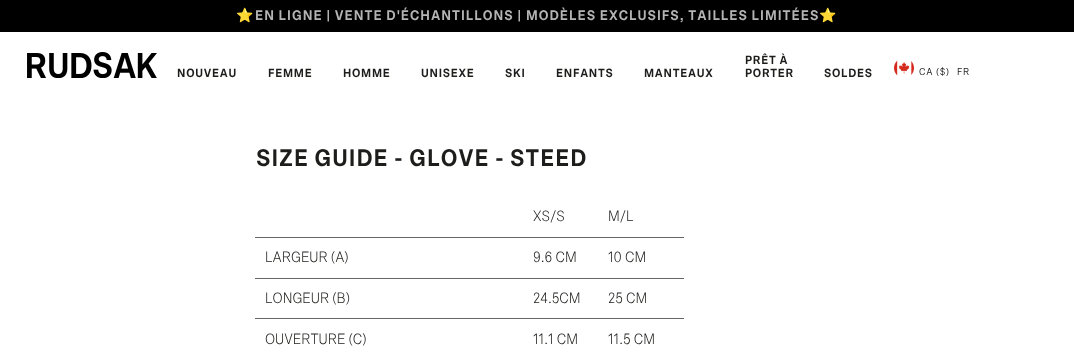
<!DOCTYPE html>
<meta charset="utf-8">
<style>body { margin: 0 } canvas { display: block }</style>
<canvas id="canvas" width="1074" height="356"></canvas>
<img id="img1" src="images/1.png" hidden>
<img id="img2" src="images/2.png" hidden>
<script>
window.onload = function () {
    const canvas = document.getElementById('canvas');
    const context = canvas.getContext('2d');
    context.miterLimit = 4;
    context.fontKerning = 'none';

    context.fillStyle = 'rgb(255, 255, 255)';
    context.fillRect(0, 0, 1074, 356);
    context.fillStyle = 'rgb(0, 0, 0)';
    context.fillRect(0, 0, 1074, 32);
    context.drawImage(document.getElementById('img1'), 27, 52, 130, 26);
    context.drawImage(document.getElementById('img2'), 894, 60, 20, 16);
    context.fillStyle = 'rgb(102, 102, 102)';
    context.fillRect(255, 237, 429, 1);
    context.fillRect(255, 278, 429, 1);
    context.fillRect(255, 318, 429, 1);
    context.letterSpacing = '1px';
    context.font = 'bold 14px Noto Color Emoji';
    context.fillStyle = 'rgb(180, 180, 180)';
    context.fillText('⭐', 236, 20);
    context.font = 'bold 14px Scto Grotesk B';
    context.fillText('EN LIGNE | VENTE D\'ÉCHANTILLONS | MODÈLES EXCLUSIFS, TAILLES LIMITÉES', 255, 20);
    context.font = 'bold 14px Noto Color Emoji';
    context.fillText('⭐', 819, 20);
    context.letterSpacing = '0.75px';
    context.font = 'bold 12px Scto Grotesk B';
    context.fillStyle = 'rgb(29, 29, 27)';
    context.fillText('NOUVEAU', 177, 77);
    context.fillText('FEMME', 268, 77);
    context.fillText('HOMME', 343, 77);
    context.fillText('UNISEXE', 421, 77);
    context.fillText('SKI', 505, 77);
    context.fillText('ENFANTS', 556, 77);
    context.fillText('MANTEAUX', 644, 77);
    context.fillText('PRÊT À', 745, 64);
    context.fillText('PORTER', 745, 77);
    context.fillText('SOLDES', 824, 77);
    context.font = '10px Scto Grotesk B';
    context.fillText('CA ($)', 919, 75);
    context.fillText('FR', 957, 75);
    context.letterSpacing = '1px';
    context.font = 'bold 24px Scto Grotesk B';
    context.fillText('SIZE GUIDE - GLOVE - STEED', 256, 166);
    context.letterSpacing = '0px';
    context.font = '300 15px Scto Grotesk B';
    context.fillText('XS/S', 533, 221);
    context.fillText('M/L', 608, 221);
    context.fillText('LARGEUR (A)', 265, 262);
    context.fillText('9.6 CM', 533, 262);
    context.fillText('10 CM', 608, 262);
    context.fillText('LONGEUR (B)', 265, 303);
    context.fillText('24.5CM', 533, 303);
    context.fillText('25 CM', 608, 303);
    context.fillText('OUVERTURE (C)', 265, 344);
    context.fillText('11.1 CM', 533, 344);
    context.fillText('11.5 CM', 608, 344);
};
</script>
